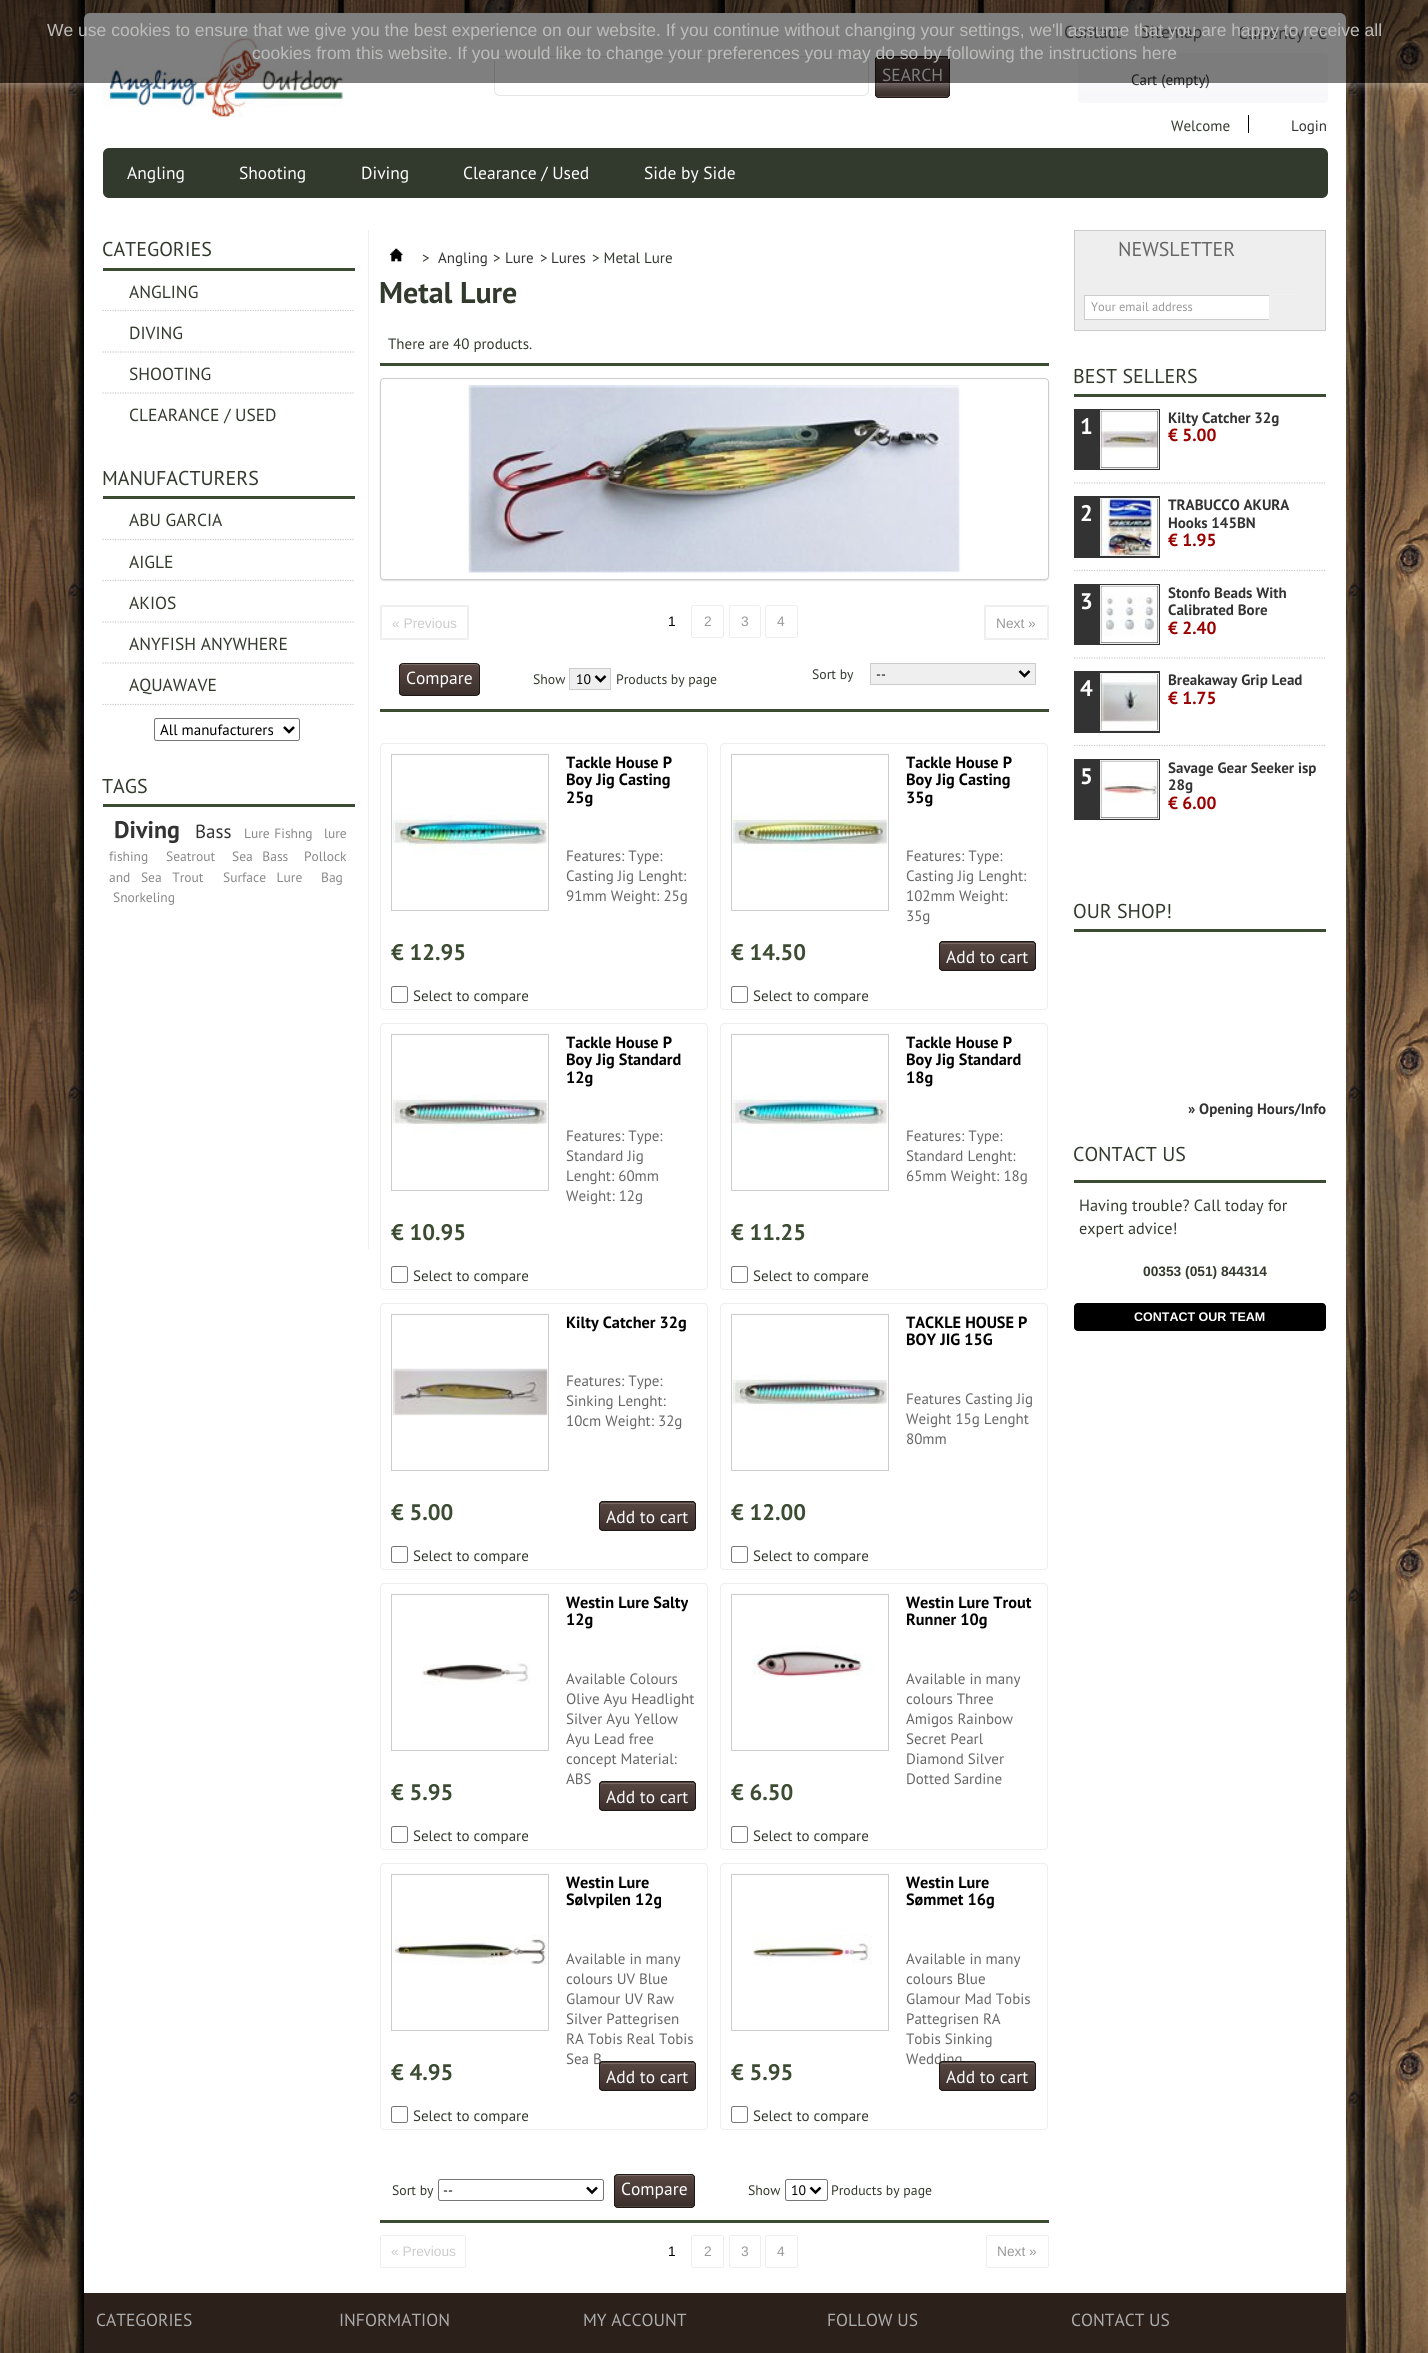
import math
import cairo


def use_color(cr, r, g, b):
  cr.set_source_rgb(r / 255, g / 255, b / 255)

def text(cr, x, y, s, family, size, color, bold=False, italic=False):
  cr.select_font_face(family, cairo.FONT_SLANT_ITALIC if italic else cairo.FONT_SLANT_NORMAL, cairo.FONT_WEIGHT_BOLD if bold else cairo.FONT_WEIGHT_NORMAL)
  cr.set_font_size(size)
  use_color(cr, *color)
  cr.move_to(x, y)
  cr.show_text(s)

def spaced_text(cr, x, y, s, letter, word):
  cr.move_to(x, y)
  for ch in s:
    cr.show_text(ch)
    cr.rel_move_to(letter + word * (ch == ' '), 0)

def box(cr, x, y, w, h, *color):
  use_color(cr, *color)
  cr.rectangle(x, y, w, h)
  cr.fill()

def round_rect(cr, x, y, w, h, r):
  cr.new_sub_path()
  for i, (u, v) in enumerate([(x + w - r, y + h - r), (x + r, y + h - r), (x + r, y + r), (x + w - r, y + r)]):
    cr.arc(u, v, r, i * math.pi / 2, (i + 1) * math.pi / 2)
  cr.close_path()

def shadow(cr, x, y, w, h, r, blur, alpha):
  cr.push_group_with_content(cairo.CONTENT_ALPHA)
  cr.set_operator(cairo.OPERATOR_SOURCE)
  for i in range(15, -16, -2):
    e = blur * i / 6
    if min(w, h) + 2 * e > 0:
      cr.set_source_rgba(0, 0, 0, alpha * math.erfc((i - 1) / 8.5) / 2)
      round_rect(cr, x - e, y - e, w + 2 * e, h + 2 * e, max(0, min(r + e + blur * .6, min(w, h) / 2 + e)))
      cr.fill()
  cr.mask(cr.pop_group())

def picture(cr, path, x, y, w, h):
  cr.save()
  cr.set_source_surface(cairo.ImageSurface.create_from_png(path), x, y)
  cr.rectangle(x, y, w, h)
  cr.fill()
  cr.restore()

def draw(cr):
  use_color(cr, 255, 255, 255)
  cr.paint()
  picture(cr, "img_01.png", 0, 0, 1428, 2353)
  use_color(cr, 0, 0, 0)
  shadow(cr, 84, 13, 1262, 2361, 6, 5, 0.08)
  use_color(cr, 255, 255, 255)
  round_rect(cr, 84, 13, 1262, 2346, 6)
  cr.fill()
  box(cr, 84, 2293, 1262, 60, 43, 32, 26)
  round_rect(cr, 494.5, 56.5, 374, 39, 5.5)
  use_color(cr, 228, 228, 228)
  cr.set_line_width(1)
  cr.stroke()
  use_color(cr, 76, 62, 57)
  round_rect(cr, 875, 56, 75, 42, 4)
  cr.fill()
  cr.save()
  round_rect(cr, 875, 56, 75, 42, 4)
  cr.clip()
  gradient = cairo.LinearGradient(913, 58, 913, 96)
  gradient.add_color_stop_rgba(0, 0.345, 0.278, 0.259, 1)
  gradient.add_color_stop_rgba(1, 0.231, 0.184, 0.173, 1)
  cr.set_source(gradient)
  cr.rectangle(875, 58, 75, 38)
  cr.fill()
  cr.restore()
  cr.set_source_rgba(1, 1, 1, 0.2)
  cr.new_path()
  cr.move_to(879, 59)
  cr.line_to(946, 59)
  cr.curve_to(948, 59, 949, 60, 949, 61)
  cr.curve_to(949, 55, 937, 58, 935, 58)
  cr.line_to(890, 58)
  cr.curve_to(888, 58, 876, 55, 876, 61)
  cr.curve_to(876, 60, 877, 59, 879, 59)
  cr.close_path()
  cr.fill()
  round_rect(cr, 875.5, 56.5, 74, 41, 3.5)
  use_color(cr, 30, 24, 22)
  cr.stroke()
  use_color(cr, 248, 248, 250)
  round_rect(cr, 1078, 53, 250, 50, 4)
  cr.fill()
  picture(cr, "img_02.png", 102, 37, 241, 81)
  cr.save()
  cr.set_fill_rule(cairo.FILL_RULE_EVEN_ODD)
  cr.new_path()
  cr.move_to(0, 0)
  cr.line_to(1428, 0)
  cr.line_to(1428, 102)
  cr.line_to(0, 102)
  cr.close_path()
  cr.move_to(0, 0)
  cr.line_to(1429, 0)
  cr.line_to(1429, 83)
  cr.line_to(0, 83)
  cr.close_path()
  cr.clip()
  use_color(cr, 255, 255, 255)
  shadow(cr, 0, 0, 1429, 83, 0, 6, 0.5)
  cr.restore()
  box(cr, 1248, 115, 1, 18, 0, 0, 0)
  use_color(cr, 50, 58, 46)
  round_rect(cr, 103, 148, 1225, 50, 6)
  cr.fill()
  box(cr, 368, 230, 1, 1019, 238, 238, 238)
  box(cr, 103, 268, 252, 3, 60, 76, 50)
  cr.new_path()
  cr.move_to(102.5, 310.5)
  cr.line_to(355, 310.5)
  use_color(cr, 204, 204, 204)
  cr.set_line_width(1.2)
  cr.set_dash([1.25, 1.25])
  cr.stroke()
  cr.new_path()
  cr.move_to(102.5, 352)
  cr.line_to(355, 352)
  cr.stroke()
  cr.new_path()
  cr.move_to(102.5, 393)
  cr.line_to(355, 393)
  cr.stroke()
  box(cr, 103, 496, 252, 3, 60, 76, 50)
  cr.new_path()
  cr.move_to(102.5, 539.5)
  cr.line_to(355, 539.5)
  use_color(cr, 204, 204, 204)
  cr.stroke()
  cr.new_path()
  cr.move_to(102.5, 580.5)
  cr.line_to(355, 580.5)
  cr.stroke()
  cr.new_path()
  cr.move_to(102.5, 622)
  cr.line_to(355, 622)
  cr.stroke()
  cr.new_path()
  cr.move_to(102.5, 663)
  cr.line_to(355, 663)
  cr.stroke()
  cr.new_path()
  cr.move_to(102.5, 704.5)
  cr.line_to(355, 704.5)
  cr.stroke()
  round_rect(cr, 154.5, 718.5, 145, 22, 2)
  use_color(cr, 118, 118, 118)
  cr.set_line_width(1)
  cr.set_dash([])
  cr.stroke()
  cr.new_path()
  cr.move_to(284, 727)
  cr.line_to(289, 732)
  cr.line_to(294, 727)
  use_color(cr, 0, 0, 0)
  cr.set_line_width(2.5)
  cr.stroke()
  box(cr, 103, 804, 252, 3, 60, 76, 50)
  picture(cr, "img_03.png", 389, 248, 14, 14)
  box(cr, 380, 363, 669, 3, 60, 76, 50)
  cr.save()
  cr.set_fill_rule(cairo.FILL_RULE_EVEN_ODD)
  cr.new_path()
  cr.move_to(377, 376)
  cr.line_to(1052, 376)
  cr.line_to(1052, 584)
  cr.line_to(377, 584)
  cr.close_path()
  cr.move_to(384, 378)
  cr.line_to(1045, 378)
  cr.curve_to(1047, 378, 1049, 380, 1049, 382)
  cr.line_to(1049, 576)
  cr.curve_to(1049, 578, 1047, 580, 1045, 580)
  cr.line_to(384, 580)
  cr.curve_to(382, 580, 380, 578, 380, 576)
  cr.line_to(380, 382)
  cr.curve_to(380, 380, 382, 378, 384, 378)
  cr.close_path()
  cr.clip()
  use_color(cr, 226, 226, 226)
  shadow(cr, 380, 379, 669, 202, 4, 0.5, 1)
  cr.restore()
  round_rect(cr, 380.5, 378.5, 668, 201, 3.5)
  use_color(cr, 204, 204, 204)
  cr.set_line_width(1)
  cr.stroke()
  picture(cr, "img_04.png", 468, 385, 493, 188)
  cr.rectangle(380.5, 605.5, 88, 34)
  use_color(cr, 238, 238, 238)
  cr.stroke()
  round_rect(cr, 381.5, 606.5, 86, 32, 2)
  cr.stroke()
  round_rect(cr, 691.5, 605.5, 32, 32, 2)
  cr.stroke()
  round_rect(cr, 729.5, 605.5, 31, 32, 2)
  cr.stroke()
  round_rect(cr, 765.5, 605.5, 32, 32, 2)
  cr.stroke()
  cr.rectangle(984.5, 605.5, 64, 34)
  cr.stroke()
  round_rect(cr, 985.5, 606.5, 62, 32, 2)
  cr.stroke()
  box(cr, 380, 709, 669, 3, 60, 76, 50)
  cr.save()
  round_rect(cr, 399, 663, 81, 33, 4)
  cr.clip()
  gradient = cairo.LinearGradient(439, 664, 439, 695)
  gradient.add_color_stop_rgba(0, 0.345, 0.278, 0.259, 1)
  gradient.add_color_stop_rgba(1, 0.231, 0.184, 0.173, 1)
  cr.set_source(gradient)
  cr.rectangle(399, 664, 81, 31)
  cr.fill()
  cr.restore()
  use_color(cr, 121, 108, 104)
  cr.set_fill_rule(cairo.FILL_RULE_EVEN_ODD)
  cr.new_path()
  cr.move_to(402, 665)
  cr.line_to(477, 665)
  cr.line_to(479, 667)
  cr.curve_to(479, 666, 478, 664, 477, 664)
  cr.line_to(402, 664)
  cr.line_to(401, 665)
  cr.line_to(400, 666)
  cr.curve_to(400, 666, 401, 665, 402, 665)
  cr.close_path()
  cr.move_to(400, 694)
  cr.line_to(400, 689)
  cr.close_path()
  cr.fill()
  round_rect(cr, 399.5, 663.5, 80, 32, 3.5)
  use_color(cr, 30, 24, 22)
  cr.stroke()
  use_color(cr, 239, 239, 239)
  cr.rectangle(569.5, 668.5, 41, 21)
  cr.fill_preserve()
  use_color(cr, 204, 204, 204)
  cr.stroke()
  cr.new_path()
  cr.move_to(595.5, 676)
  cr.line_to(600.5, 681)
  cr.line_to(605.5, 676)
  use_color(cr, 0, 0, 0)
  cr.set_line_width(2.5)
  cr.stroke()
  use_color(cr, 239, 239, 239)
  cr.rectangle(870.5, 663.5, 165, 21)
  cr.fill_preserve()
  use_color(cr, 204, 204, 204)
  cr.set_line_width(1)
  cr.stroke()
  cr.new_path()
  cr.move_to(1019.5, 671)
  cr.line_to(1024.5, 676)
  cr.line_to(1029.5, 671)
  use_color(cr, 0, 0, 0)
  cr.set_line_width(2.5)
  cr.stroke()
  round_rect(cr, 380.5, 743.5, 327, 266, 3.5)
  use_color(cr, 238, 238, 238)
  cr.set_line_width(1)
  cr.stroke()
  cr.rectangle(391.5, 754.5, 157, 156)
  use_color(cr, 204, 204, 204)
  cr.stroke()
  picture(cr, "img_05.png", 392, 814, 156, 41)
  round_rect(cr, 391.5, 986.5, 16, 16, 2)
  use_color(cr, 118, 118, 118)
  cr.stroke()
  round_rect(cr, 720.5, 743.5, 327, 266, 3.5)
  use_color(cr, 238, 238, 238)
  cr.stroke()
  cr.rectangle(731.5, 754.5, 157, 156)
  use_color(cr, 204, 204, 204)
  cr.stroke()
  picture(cr, "img_06.png", 732, 814, 156, 38)
  use_color(cr, 76, 62, 57)
  round_rect(cr, 939, 941, 97, 30, 4)
  cr.fill()
  cr.save()
  cr.set_fill_rule(cairo.FILL_RULE_WINDING)
  round_rect(cr, 939, 941, 97, 30, 4)
  cr.clip()
  gradient = cairo.LinearGradient(988, 943, 988, 970)
  gradient.add_color_stop_rgba(0, 0.345, 0.278, 0.259, 1)
  gradient.add_color_stop_rgba(1, 0.231, 0.184, 0.173, 1)
  cr.set_source(gradient)
  cr.rectangle(939, 943, 97, 27)
  cr.fill()
  cr.restore()
  use_color(cr, 121, 108, 104)
  cr.set_fill_rule(cairo.FILL_RULE_WINDING)
  cr.new_path()
  cr.move_to(942, 944)
  cr.line_to(1032, 944)
  cr.curve_to(1034, 944, 1035, 945, 1035, 946)
  cr.curve_to(1035, 945, 1034, 943, 1033, 943)
  cr.line_to(942, 943)
  cr.curve_to(941, 943, 940, 945, 940, 946)
  cr.curve_to(940, 945, 941, 944, 942, 944)
  cr.close_path()
  cr.fill()
  round_rect(cr, 939.5, 941.5, 96, 29, 3.5)
  use_color(cr, 30, 24, 22)
  cr.stroke()
  round_rect(cr, 731.5, 986.5, 16, 16, 2)
  use_color(cr, 118, 118, 118)
  cr.stroke()
  round_rect(cr, 380.5, 1023.5, 327, 266, 3.5)
  use_color(cr, 238, 238, 238)
  cr.stroke()
  cr.rectangle(391.5, 1034.5, 157, 156)
  use_color(cr, 204, 204, 204)
  cr.stroke()
  picture(cr, "img_07.png", 392, 1095, 156, 39)
  round_rect(cr, 391.5, 1266.5, 16, 16, 2)
  use_color(cr, 118, 118, 118)
  cr.stroke()
  round_rect(cr, 720.5, 1023.5, 327, 266, 3.5)
  use_color(cr, 238, 238, 238)
  cr.stroke()
  cr.rectangle(731.5, 1034.5, 157, 156)
  use_color(cr, 204, 204, 204)
  cr.stroke()
  picture(cr, "img_08.png", 732, 1095, 156, 38)
  round_rect(cr, 731.5, 1266.5, 16, 16, 2)
  use_color(cr, 118, 118, 118)
  cr.stroke()
  round_rect(cr, 380.5, 1303.5, 327, 266, 3.5)
  use_color(cr, 238, 238, 238)
  cr.stroke()
  cr.rectangle(391.5, 1314.5, 157, 156)
  use_color(cr, 204, 204, 204)
  cr.stroke()
  picture(cr, "img_09.png", 392, 1368, 156, 48)
  use_color(cr, 76, 62, 57)
  round_rect(cr, 599, 1501, 97, 30, 4)
  cr.fill()
  cr.save()
  round_rect(cr, 599, 1501, 97, 30, 4)
  cr.clip()
  gradient = cairo.LinearGradient(648, 1503, 648, 1530)
  gradient.add_color_stop_rgba(0, 0.345, 0.278, 0.259, 1)
  gradient.add_color_stop_rgba(1, 0.231, 0.184, 0.173, 1)
  cr.set_source(gradient)
  cr.rectangle(599, 1503, 97, 27)
  cr.fill()
  cr.restore()
  use_color(cr, 121, 108, 104)
  cr.new_path()
  cr.move_to(602, 1504)
  cr.line_to(692, 1504)
  cr.curve_to(694, 1504, 695, 1505, 695, 1506)
  cr.curve_to(695, 1505, 694, 1503, 693, 1503)
  cr.line_to(602, 1503)
  cr.curve_to(601, 1503, 600, 1505, 600, 1506)
  cr.curve_to(600, 1505, 601, 1504, 602, 1504)
  cr.close_path()
  cr.fill()
  round_rect(cr, 599.5, 1501.5, 96, 29, 3.5)
  use_color(cr, 30, 24, 22)
  cr.stroke()
  round_rect(cr, 391.5, 1546.5, 16, 16, 2)
  use_color(cr, 118, 118, 118)
  cr.stroke()
  round_rect(cr, 720.5, 1303.5, 327, 266, 3.5)
  use_color(cr, 238, 238, 238)
  cr.stroke()
  cr.rectangle(731.5, 1314.5, 157, 156)
  use_color(cr, 204, 204, 204)
  cr.stroke()
  picture(cr, "img_10.png", 732, 1375, 156, 40)
  round_rect(cr, 731.5, 1546.5, 16, 16, 2)
  use_color(cr, 118, 118, 118)
  cr.stroke()
  round_rect(cr, 380.5, 1583.5, 327, 266, 3.5)
  use_color(cr, 238, 238, 238)
  cr.stroke()
  cr.rectangle(391.5, 1594.5, 157, 156)
  use_color(cr, 204, 204, 204)
  cr.stroke()
  picture(cr, "img_11.png", 422, 1663, 109, 22)
  use_color(cr, 76, 62, 57)
  round_rect(cr, 599, 1781, 97, 30, 4)
  cr.fill()
  cr.save()
  round_rect(cr, 599, 1781, 97, 30, 4)
  cr.clip()
  gradient = cairo.LinearGradient(648, 1783, 648, 1810)
  gradient.add_color_stop_rgba(0, 0.345, 0.278, 0.259, 1)
  gradient.add_color_stop_rgba(1, 0.231, 0.184, 0.173, 1)
  cr.set_source(gradient)
  cr.rectangle(599, 1783, 97, 27)
  cr.fill()
  cr.restore()
  use_color(cr, 121, 108, 104)
  cr.new_path()
  cr.move_to(602, 1784)
  cr.line_to(692, 1784)
  cr.curve_to(694, 1784, 695, 1785, 695, 1786)
  cr.curve_to(695, 1785, 694, 1783, 693, 1783)
  cr.line_to(602, 1783)
  cr.curve_to(601, 1783, 600, 1785, 600, 1786)
  cr.curve_to(600, 1785, 601, 1784, 602, 1784)
  cr.close_path()
  cr.fill()
  round_rect(cr, 599.5, 1781.5, 96, 29, 3.5)
  use_color(cr, 30, 24, 22)
  cr.stroke()
  round_rect(cr, 391.5, 1826.5, 16, 16, 2)
  use_color(cr, 118, 118, 118)
  cr.stroke()
  round_rect(cr, 720.5, 1583.5, 327, 266, 3.5)
  use_color(cr, 238, 238, 238)
  cr.stroke()
  cr.rectangle(731.5, 1594.5, 157, 156)
  use_color(cr, 204, 204, 204)
  cr.stroke()
  picture(cr, "img_12.png", 752, 1646, 121, 31)
  round_rect(cr, 731.5, 1826.5, 16, 16, 2)
  use_color(cr, 118, 118, 118)
  cr.stroke()
  round_rect(cr, 380.5, 1863.5, 327, 266, 3.5)
  use_color(cr, 238, 238, 238)
  cr.stroke()
  cr.rectangle(391.5, 1874.5, 157, 156)
  use_color(cr, 204, 204, 204)
  cr.stroke()
  picture(cr, "img_13.png", 393, 1935, 154, 30)
  round_rect(cr, 391.5, 2106.5, 16, 16, 2)
  use_color(cr, 118, 118, 118)
  cr.stroke()
  round_rect(cr, 720.5, 1863.5, 327, 266, 3.5)
  use_color(cr, 238, 238, 238)
  cr.stroke()
  cr.rectangle(731.5, 1874.5, 157, 156)
  use_color(cr, 204, 204, 204)
  cr.stroke()
  picture(cr, "img_14.png", 752, 1934, 120, 31)
  round_rect(cr, 731.5, 2106.5, 16, 16, 2)
  use_color(cr, 118, 118, 118)
  cr.stroke()
  box(cr, 380, 2220, 669, 3, 60, 76, 50)
  round_rect(cr, 438.5, 2179.5, 165, 21, 2)
  use_color(cr, 118, 118, 118)
  cr.stroke()
  cr.new_path()
  cr.move_to(587, 2187.5)
  cr.line_to(592, 2192.5)
  cr.line_to(597, 2187.5)
  use_color(cr, 0, 0, 0)
  cr.set_line_width(2.5)
  cr.stroke()
  use_color(cr, 76, 62, 57)
  round_rect(cr, 614, 2174, 81, 34, 4)
  cr.fill()
  cr.save()
  round_rect(cr, 614, 2174, 81, 34, 4)
  cr.clip()
  gradient = cairo.LinearGradient(654, 2175, 654, 2206)
  gradient.add_color_stop_rgba(0, 0.345, 0.278, 0.259, 1)
  gradient.add_color_stop_rgba(1, 0.231, 0.184, 0.173, 1)
  cr.set_source(gradient)
  cr.rectangle(614, 2175, 81, 31)
  cr.fill()
  cr.restore()
  cr.set_source_rgba(1, 1, 1, 0.2)
  cr.set_fill_rule(cairo.FILL_RULE_EVEN_ODD)
  cr.new_path()
  cr.move_to(618, 2176)
  cr.line_to(692, 2176)
  cr.line_to(694, 2178)
  cr.curve_to(694, 2177, 694, 2176, 692, 2175)
  cr.line_to(630, 2175)
  cr.curve_to(626, 2175, 615, 2172, 615, 2179)
  cr.curve_to(615, 2177, 616, 2176, 618, 2176)
  cr.close_path()
  cr.move_to(615, 2204)
  cr.line_to(615, 2201)
  cr.close_path()
  cr.fill()
  round_rect(cr, 614.5, 2174.5, 80, 33, 3.5)
  use_color(cr, 30, 24, 22)
  cr.set_line_width(1)
  cr.stroke()
  round_rect(cr, 785.5, 2179.5, 42, 21, 2)
  use_color(cr, 118, 118, 118)
  cr.stroke()
  cr.new_path()
  cr.move_to(810.5, 2187.5)
  cr.line_to(815.5, 2192.5)
  cr.line_to(820.5, 2187.5)
  use_color(cr, 0, 0, 0)
  cr.set_line_width(2.5)
  cr.stroke()
  round_rect(cr, 380.5, 2235.5, 85, 32, 2)
  use_color(cr, 238, 238, 238)
  cr.set_line_width(1)
  cr.stroke()
  round_rect(cr, 691.5, 2235.5, 32, 32, 2)
  cr.stroke()
  round_rect(cr, 729.5, 2235.5, 31, 32, 2)
  cr.stroke()
  round_rect(cr, 765.5, 2235.5, 32, 32, 2)
  cr.stroke()
  round_rect(cr, 986.5, 2235.5, 62, 32, 2)
  cr.stroke()
  cr.rectangle(1074.5, 230.5, 251, 100)
  cr.fill_preserve()
  use_color(cr, 204, 204, 204)
  cr.stroke()
  use_color(cr, 241, 241, 241)
  cr.set_fill_rule(cairo.FILL_RULE_WINDING)
  cr.new_path()
  cr.move_to(1274, 295)
  cr.line_to(1294, 295)
  cr.curve_to(1296, 295, 1298, 297, 1298, 299)
  cr.curve_to(1298, 294, 1295, 294, 1290.5, 294)
  cr.line_to(1277.5, 294)
  cr.curve_to(1273, 294, 1270, 294, 1270, 299)
  cr.curve_to(1270, 297, 1272, 295, 1274, 295)
  cr.close_path()
  cr.fill()
  box(cr, 1085, 296, 184, 23, 255, 255, 255)
  box(cr, 1084, 295, 185, 1, 204, 204, 204)
  box(cr, 1084, 319, 185, 1, 204, 204, 204)
  box(cr, 1084, 295, 1, 25, 204, 204, 204)
  box(cr, 1074, 394, 252, 3, 60, 76, 50)
  cr.new_path()
  cr.move_to(1074, 483)
  cr.line_to(1326, 483)
  use_color(cr, 204, 204, 204)
  cr.set_line_width(1.2)
  cr.set_dash([1.25, 1.25])
  cr.stroke()
  box(cr, 1074, 409, 86, 61, 51, 51, 51)
  cr.rectangle(1100.5, 410.5, 58, 58)
  use_color(cr, 237, 237, 237)
  cr.set_line_width(1)
  cr.set_dash([])
  cr.stroke()
  picture(cr, "img_15.png", 1101, 411, 57, 57)
  cr.new_path()
  cr.move_to(1074, 570.5)
  cr.line_to(1326, 570.5)
  use_color(cr, 204, 204, 204)
  cr.set_line_width(1.2)
  cr.set_dash([1.25, 1.25])
  cr.stroke()
  box(cr, 1074, 496, 86, 62, 51, 51, 51)
  cr.rectangle(1100.5, 498.5, 58, 57)
  use_color(cr, 237, 237, 237)
  cr.set_line_width(1)
  cr.set_dash([])
  cr.stroke()
  picture(cr, "img_16.png", 1101, 498, 57, 57)
  cr.new_path()
  cr.move_to(1074, 658)
  cr.line_to(1326, 658)
  use_color(cr, 204, 204, 204)
  cr.set_line_width(1.2)
  cr.set_dash([1.25, 1.25])
  cr.stroke()
  box(cr, 1074, 584, 86, 61, 51, 51, 51)
  cr.rectangle(1100.5, 585.5, 58, 58)
  use_color(cr, 237, 237, 237)
  cr.set_line_width(1)
  cr.set_dash([])
  cr.stroke()
  picture(cr, "img_17.png", 1101, 586, 57, 57)
  cr.new_path()
  cr.move_to(1074, 745.5)
  cr.line_to(1326, 745.5)
  use_color(cr, 204, 204, 204)
  cr.set_line_width(1.2)
  cr.set_dash([1.25, 1.25])
  cr.stroke()
  box(cr, 1074, 671, 86, 62, 51, 51, 51)
  cr.rectangle(1100.5, 673.5, 58, 57)
  use_color(cr, 237, 237, 237)
  cr.set_line_width(1)
  cr.set_dash([])
  cr.stroke()
  picture(cr, "img_18.png", 1101, 673, 57, 57)
  box(cr, 1074, 759, 86, 61, 51, 51, 51)
  cr.rectangle(1100.5, 760.5, 58, 58)
  use_color(cr, 237, 237, 237)
  cr.stroke()
  picture(cr, "img_19.png", 1101, 761, 57, 57)
  box(cr, 1074, 929, 252, 3, 60, 76, 50)
  box(cr, 1074, 1180, 252, 3, 60, 76, 50)
  use_color(cr, 0, 0, 0)
  round_rect(cr, 1074, 1303, 252, 28, 4)
  cr.fill()
  text(cr, 96, 2326, "CATEGORIES", "PT Sans", 17.5, (172, 172, 172))
  text(cr, 339, 2326, "INFORMATION", "PT Sans", 17.5, (172, 172, 172))
  text(cr, 583, 2326, "MY ACCOUNT", "PT Sans", 17.5, (172, 172, 172))
  text(cr, 827, 2326, "FOLLOW US", "PT Sans", 17.5, (172, 172, 172))
  text(cr, 1071, 2326, "CONTACT US", "PT Sans", 17.5, (172, 172, 172))
  text(cr, 1064, 38, "Contact", "PT Sans", 17.5, (102, 102, 102))
  text(cr, 1141, 38, "Sitemap", "PT Sans", 17.5, (102, 102, 102))
  text(cr, 1238, 39, "Currency : €", "PT Sans", 17.5, (102, 102, 102))
  text(cr, 882, 81, "SEARCH", "PT Sans", 17.5, (255, 255, 255))
  text(cr, 1131, 85, "Cart (empty)", "PT Sans", 15, (51, 51, 51))
  cr.set_source_rgba(0, 0, 0, 0.5)
  cr.rectangle(0, 0, 1428, 83)
  cr.fill()
  text(cr, 1142, 59, "here", "Liberation Sans", 17.5, (188, 188, 187))
  text(cr, 252, 59, "cookies from this website. If you would like to change your preferences you may do so by following the instructions", "Liberation Sans", 17.5, (188, 188, 187))
  text(cr, 47, 36, "We use cookies to ensure that we give you the best experience on our website. If you continue without changing your settings, we'll assume that you are happy to receive all", "Liberation Sans", 17.5, (188, 188, 187))
  text(cr, 1171, 131, "Welcome", "PT Sans", 15, (50, 58, 46))
  text(cr, 1291, 131, "Login", "PT Sans", 15, (51, 51, 51))
  text(cr, 127, 179, "Angling", "PT Sans", 17.5, (255, 255, 255))
  text(cr, 239, 179, "Shooting", "PT Sans", 17.5, (255, 255, 255))
  text(cr, 361, 179, "Diving", "PT Sans", 17.5, (255, 255, 255))
  text(cr, 463, 179, "Clearance / Used", "PT Sans", 17.5, (255, 255, 255))
  text(cr, 644, 179, "Side by Side", "PT Sans", 17.5, (255, 255, 255))
  text(cr, 102, 256, "CATEGORIES", "PT Sans", 20, (50, 58, 46))
  text(cr, 129, 298, "ANGLING", "PT Sans", 17.5, (50, 58, 46))
  text(cr, 129, 339, "DIVING", "PT Sans", 17.5, (50, 58, 46))
  text(cr, 129, 380, "SHOOTING", "PT Sans", 17.5, (50, 58, 46))
  text(cr, 129, 421, "CLEARANCE / USED", "PT Sans", 17.5, (50, 58, 46))
  text(cr, 102, 485, "MANUFACTURERS", "PT Sans", 20, (50, 58, 46))
  text(cr, 129, 526, "ABU GARCIA", "PT Sans", 17.5, (50, 58, 46))
  text(cr, 129, 568, "AIGLE", "PT Sans", 17.5, (50, 58, 46))
  text(cr, 129, 609, "AKIOS", "PT Sans", 17.5, (50, 58, 46))
  text(cr, 129, 650, "ANYFISH ANYWHERE", "PT Sans", 17.5, (50, 58, 46))
  text(cr, 129, 691, "AQUAWAVE", "PT Sans", 17.5, (50, 58, 46))
  text(cr, 160, 735, "All manufacturers", "PT Sans", 15, (0, 0, 0))
  text(cr, 102, 793, "TAGS", "PT Sans", 20, (50, 58, 46))
  text(cr, 114, 838, "Diving", "PT Sans", 24, (51, 51, 51), bold=True)
  text(cr, 195, 838, "Bass", "PT Sans", 19, (51, 51, 51))
  cr.set_font_size(13.5)
  use_color(cr, 136, 136, 136)
  spaced_text(cr, 244, 838, "Lure Fishng", 0, 1)
  text(cr, 324, 838, "lure", "PT Sans", 13.5, (136, 136, 136))
  text(cr, 109, 861, "fishing", "PT Sans", 13.5, (136, 136, 136))
  text(cr, 166, 861, "Seatrout", "PT Sans", 13.5, (136, 136, 136))
  spaced_text(cr, 232, 861, "Sea Bass", 0, 6)
  text(cr, 304, 861, "Pollock", "PT Sans", 13.5, (136, 136, 136))
  spaced_text(cr, 109, 882, "and Sea Trout", 0, 7)
  spaced_text(cr, 223, 882, "Surface Lure", 0, 7)
  text(cr, 321, 882, "Bag", "PT Sans", 13.5, (136, 136, 136))
  text(cr, 113, 902, "Snorkeling", "PT Sans", 13.5, (136, 136, 136))
  text(cr, 422, 263, ">", "PT Sans", 15, (50, 58, 46))
  text(cr, 438, 263, "Angling", "PT Sans", 15, (51, 51, 51))
  text(cr, 493, 263, ">", "PT Sans", 15, (50, 58, 46))
  text(cr, 505, 263, "Lure", "PT Sans", 15, (51, 51, 51))
  text(cr, 540, 263, ">", "PT Sans", 15, (50, 58, 46))
  text(cr, 551, 263, "Lures", "PT Sans", 15, (51, 51, 51))
  text(cr, 592, 263, "> Metal Lure", "PT Sans", 15, (50, 58, 46))
  text(cr, 379, 303, "Metal Lure", "PT Sans", 30, (50, 58, 46), bold=True)
  text(cr, 388, 349, "There are 40 products.", "PT Sans", 15, (50, 58, 46))
  text(cr, 392, 628, "« Previous", "Liberation Sans", 13.75, (204, 204, 204))
  text(cr, 668, 626, "1", "Liberation Sans", 13.75, (0, 0, 0))
  text(cr, 704, 626, "2", "Liberation Sans", 13.75, (153, 153, 153))
  text(cr, 741, 626, "3", "Liberation Sans", 13.75, (153, 153, 153))
  text(cr, 777, 626, "4", "Liberation Sans", 13.75, (153, 153, 153))
  text(cr, 996, 628, "Next »", "Liberation Sans", 13.75, (153, 153, 153))
  text(cr, 406, 684, "Compare", "PT Sans", 17.5, (255, 255, 255))
  text(cr, 533, 684, "Show", "PT Sans", 13.75, (50, 58, 46))
  text(cr, 576, 684, "10", "PT Sans", 13.75, (0, 0, 0))
  text(cr, 616, 684, "Products by page", "PT Sans", 13.75, (50, 58, 46))
  text(cr, 812, 679, "Sort by", "PT Sans", 13.75, (50, 58, 46))
  text(cr, 876, 679, "--", "PT Sans", 13.75, (0, 0, 0))
  text(cr, 566, 768, "Tackle House P", "PT Sans", 16.25, (0, 0, 0), bold=True)
  text(cr, 566, 785, "Boy Jig Casting", "PT Sans", 16.25, (0, 0, 0), bold=True)
  text(cr, 566, 803, "25g", "PT Sans", 16.25, (0, 0, 0), bold=True)
  text(cr, 566, 861, "Features: Type:", "PT Sans", 15, (102, 102, 102))
  text(cr, 566, 881, "Casting Jig Lenght:", "PT Sans", 15, (102, 102, 102))
  text(cr, 566, 901, "91mm Weight: 25g", "PT Sans", 15, (102, 102, 102))
  text(cr, 391, 960, "€ 12.95", "PT Sans", 22.5, (60, 76, 50), bold=True)
  text(cr, 413, 1001, "Select to compare", "PT Sans", 15, (50, 58, 46))
  text(cr, 906, 768, "Tackle House P", "PT Sans", 16.25, (0, 0, 0), bold=True)
  text(cr, 906, 785, "Boy Jig Casting", "PT Sans", 16.25, (0, 0, 0), bold=True)
  text(cr, 906, 803, "35g", "PT Sans", 16.25, (0, 0, 0), bold=True)
  text(cr, 906, 861, "Features: Type:", "PT Sans", 15, (102, 102, 102))
  text(cr, 906, 881, "Casting Jig Lenght:", "PT Sans", 15, (102, 102, 102))
  text(cr, 906, 901, "102mm Weight:", "PT Sans", 15, (102, 102, 102))
  text(cr, 906, 921, "35g", "PT Sans", 15, (102, 102, 102))
  text(cr, 731, 960, "€ 14.50", "PT Sans", 22.5, (60, 76, 50), bold=True)
  text(cr, 946, 963, "Add to cart", "PT Sans", 17.5, (255, 255, 255))
  text(cr, 753, 1001, "Select to compare", "PT Sans", 15, (50, 58, 46))
  text(cr, 566, 1048, "Tackle House P", "PT Sans", 16.25, (0, 0, 0), bold=True)
  text(cr, 566, 1065, "Boy Jig Standard", "PT Sans", 16.25, (0, 0, 0), bold=True)
  text(cr, 566, 1083, "12g", "PT Sans", 16.25, (0, 0, 0), bold=True)
  text(cr, 566, 1141, "Features: Type:", "PT Sans", 15, (102, 102, 102))
  text(cr, 566, 1161, "Standard Jig", "PT Sans", 15, (102, 102, 102))
  text(cr, 566, 1181, "Lenght: 60mm", "PT Sans", 15, (102, 102, 102))
  text(cr, 566, 1201, "Weight: 12g", "PT Sans", 15, (102, 102, 102))
  text(cr, 391, 1240, "€ 10.95", "PT Sans", 22.5, (60, 76, 50), bold=True)
  text(cr, 413, 1281, "Select to compare", "PT Sans", 15, (50, 58, 46))
  text(cr, 906, 1048, "Tackle House P", "PT Sans", 16.25, (0, 0, 0), bold=True)
  text(cr, 906, 1065, "Boy Jig Standard", "PT Sans", 16.25, (0, 0, 0), bold=True)
  text(cr, 906, 1083, "18g", "PT Sans", 16.25, (0, 0, 0), bold=True)
  text(cr, 906, 1141, "Features: Type:", "PT Sans", 15, (102, 102, 102))
  text(cr, 906, 1161, "Standard Lenght:", "PT Sans", 15, (102, 102, 102))
  text(cr, 906, 1181, "65mm Weight: 18g", "PT Sans", 15, (102, 102, 102))
  text(cr, 731, 1240, "€ 11.25", "PT Sans", 22.5, (60, 76, 50), bold=True)
  text(cr, 753, 1281, "Select to compare", "PT Sans", 15, (50, 58, 46))
  text(cr, 566, 1328, "Kilty Catcher 32g", "PT Sans", 16.25, (0, 0, 0), bold=True)
  text(cr, 566, 1386, "Features: Type:", "PT Sans", 15, (102, 102, 102))
  text(cr, 566, 1406, "Sinking Lenght:", "PT Sans", 15, (102, 102, 102))
  text(cr, 566, 1426, "10cm Weight: 32g", "PT Sans", 15, (102, 102, 102))
  text(cr, 391, 1520, "€ 5.00", "PT Sans", 22.5, (60, 76, 50), bold=True)
  text(cr, 606, 1523, "Add to cart", "PT Sans", 17.5, (255, 255, 255))
  text(cr, 413, 1561, "Select to compare", "PT Sans", 15, (50, 58, 46))
  text(cr, 906, 1328, "TACKLE HOUSE P", "PT Sans", 16.25, (0, 0, 0), bold=True)
  text(cr, 906, 1345, "BOY JIG 15G", "PT Sans", 16.25, (0, 0, 0), bold=True)
  text(cr, 906, 1404, "Features Casting Jig", "PT Sans", 15, (102, 102, 102))
  text(cr, 906, 1424, "Weight 15g Lenght", "PT Sans", 15, (102, 102, 102))
  text(cr, 906, 1444, "80mm", "PT Sans", 15, (102, 102, 102))
  text(cr, 731, 1520, "€ 12.00", "PT Sans", 22.5, (60, 76, 50), bold=True)
  text(cr, 753, 1561, "Select to compare", "PT Sans", 15, (50, 58, 46))
  text(cr, 566, 1608, "Westin Lure Salty", "PT Sans", 16.25, (0, 0, 0), bold=True)
  text(cr, 566, 1625, "12g", "PT Sans", 16.25, (0, 0, 0), bold=True)
  text(cr, 566, 1684, "Available Colours", "PT Sans", 15, (102, 102, 102))
  text(cr, 566, 1704, "Olive Ayu Headlight", "PT Sans", 15, (102, 102, 102))
  text(cr, 566, 1724, "Silver Ayu Yellow", "PT Sans", 15, (102, 102, 102))
  text(cr, 566, 1744, "Ayu Lead free", "PT Sans", 15, (102, 102, 102))
  text(cr, 566, 1764, "concept Material:", "PT Sans", 15, (102, 102, 102))
  text(cr, 566, 1784, "ABS", "PT Sans", 15, (102, 102, 102))
  text(cr, 391, 1800, "€ 5.95", "PT Sans", 22.5, (60, 76, 50), bold=True)
  text(cr, 606, 1803, "Add to cart", "PT Sans", 17.5, (255, 255, 255))
  text(cr, 413, 1841, "Select to compare", "PT Sans", 15, (50, 58, 46))
  text(cr, 906, 1608, "Westin Lure Trout", "PT Sans", 16.25, (0, 0, 0), bold=True)
  text(cr, 906, 1625, "Runner 10g", "PT Sans", 16.25, (0, 0, 0), bold=True)
  text(cr, 906, 1684, "Available in many", "PT Sans", 15, (102, 102, 102))
  text(cr, 906, 1704, "colours Three", "PT Sans", 15, (102, 102, 102))
  text(cr, 906, 1724, "Amigos Rainbow", "PT Sans", 15, (102, 102, 102))
  text(cr, 906, 1744, "Secret Pearl", "PT Sans", 15, (102, 102, 102))
  text(cr, 906, 1764, "Diamond Silver", "PT Sans", 15, (102, 102, 102))
  text(cr, 906, 1784, "Dotted Sardine", "PT Sans", 15, (102, 102, 102))
  text(cr, 731, 1800, "€ 6.50", "PT Sans", 22.5, (60, 76, 50), bold=True)
  text(cr, 753, 1841, "Select to compare", "PT Sans", 15, (50, 58, 46))
  text(cr, 566, 1888, "Westin Lure", "PT Sans", 16.25, (0, 0, 0), bold=True)
  text(cr, 566, 1905, "Sølvpilen 12g", "PT Sans", 16.25, (0, 0, 0), bold=True)
  text(cr, 566, 1964, "Available in many", "PT Sans", 15, (102, 102, 102))
  text(cr, 566, 1984, "colours UV Blue", "PT Sans", 15, (102, 102, 102))
  text(cr, 566, 2004, "Glamour UV Raw", "PT Sans", 15, (102, 102, 102))
  text(cr, 566, 2024, "Silver Pattegrisen", "PT Sans", 15, (102, 102, 102))
  text(cr, 566, 2044, "RA Tobis Real Tobis", "PT Sans", 15, (102, 102, 102))
  text(cr, 566, 2064, "Sea B", "PT Sans", 15, (102, 102, 102))
  text(cr, 391, 2080, "€ 4.95", "PT Sans", 22.5, (60, 76, 50), bold=True)
  use_color(cr, 76, 62, 57)
  round_rect(cr, 599, 2061, 97, 30, 4)
  cr.fill()
  cr.save()
  round_rect(cr, 599, 2061, 97, 30, 4)
  cr.clip()
  gradient = cairo.LinearGradient(648, 2063, 648, 2090)
  gradient.add_color_stop_rgba(0, 0.345, 0.278, 0.259, 1)
  gradient.add_color_stop_rgba(1, 0.231, 0.184, 0.173, 1)
  cr.set_source(gradient)
  cr.rectangle(599, 2063, 97, 27)
  cr.fill()
  cr.restore()
  use_color(cr, 121, 108, 104)
  cr.new_path()
  cr.move_to(602, 2064)
  cr.line_to(692, 2064)
  cr.curve_to(694, 2064, 695, 2065, 695, 2066)
  cr.curve_to(695, 2065, 694, 2063, 693, 2063)
  cr.line_to(602, 2063)
  cr.curve_to(601, 2063, 600, 2065, 600, 2066)
  cr.curve_to(600, 2065, 601, 2064, 602, 2064)
  cr.close_path()
  cr.fill()
  round_rect(cr, 599.5, 2061.5, 96, 29, 3.5)
  use_color(cr, 30, 24, 22)
  cr.stroke()
  text(cr, 606, 2083, "Add to cart", "PT Sans", 17.5, (255, 255, 255))
  text(cr, 413, 2121, "Select to compare", "PT Sans", 15, (50, 58, 46))
  text(cr, 906, 1888, "Westin Lure", "PT Sans", 16.25, (0, 0, 0), bold=True)
  text(cr, 906, 1905, "Sømmet 16g", "PT Sans", 16.25, (0, 0, 0), bold=True)
  text(cr, 906, 1964, "Available in many", "PT Sans", 15, (102, 102, 102))
  text(cr, 906, 1984, "colours Blue", "PT Sans", 15, (102, 102, 102))
  text(cr, 906, 2004, "Glamour Mad Tobis", "PT Sans", 15, (102, 102, 102))
  text(cr, 906, 2024, "Pattegrisen RA", "PT Sans", 15, (102, 102, 102))
  text(cr, 906, 2044, "Tobis Sinking", "PT Sans", 15, (102, 102, 102))
  text(cr, 906, 2064, "Wedding", "PT Sans", 15, (102, 102, 102))
  text(cr, 731, 2080, "€ 5.95", "PT Sans", 22.5, (60, 76, 50), bold=True)
  use_color(cr, 76, 62, 57)
  round_rect(cr, 939, 2061, 97, 30, 4)
  cr.fill()
  cr.save()
  round_rect(cr, 939, 2061, 97, 30, 4)
  cr.clip()
  gradient = cairo.LinearGradient(988, 2063, 988, 2090)
  gradient.add_color_stop_rgba(0, 0.345, 0.278, 0.259, 1)
  gradient.add_color_stop_rgba(1, 0.231, 0.184, 0.173, 1)
  cr.set_source(gradient)
  cr.rectangle(939, 2063, 97, 27)
  cr.fill()
  cr.restore()
  use_color(cr, 121, 108, 104)
  cr.new_path()
  cr.move_to(942, 2064)
  cr.line_to(1032, 2064)
  cr.curve_to(1034, 2064, 1035, 2065, 1035, 2066)
  cr.curve_to(1035, 2065, 1034, 2063, 1033, 2063)
  cr.line_to(942, 2063)
  cr.curve_to(941, 2063, 940, 2065, 940, 2066)
  cr.curve_to(940, 2065, 941, 2064, 942, 2064)
  cr.close_path()
  cr.fill()
  round_rect(cr, 939.5, 2061.5, 96, 29, 3.5)
  use_color(cr, 30, 24, 22)
  cr.stroke()
  text(cr, 946, 2083, "Add to cart", "PT Sans", 17.5, (255, 255, 255))
  text(cr, 753, 2121, "Select to compare", "PT Sans", 15, (50, 58, 46))
  text(cr, 392, 2195, "Sort by", "PT Sans", 13.75, (50, 58, 46))
  text(cr, 443, 2195, "--", "PT Sans", 13.75, (0, 0, 0))
  text(cr, 621, 2195, "Compare", "PT Sans", 17.5, (255, 255, 255))
  text(cr, 748, 2195, "Show", "PT Sans", 13.75, (50, 58, 46))
  text(cr, 791, 2195, "10", "PT Sans", 13.75, (0, 0, 0))
  text(cr, 831, 2195, "Products by page", "PT Sans", 13.75, (50, 58, 46))
  text(cr, 391, 2256, "« Previous", "Liberation Sans", 13.75, (204, 204, 204))
  text(cr, 668, 2256, "1", "Liberation Sans", 13.75, (0, 0, 0))
  text(cr, 704, 2256, "2", "Liberation Sans", 13.75, (153, 153, 153))
  text(cr, 741, 2256, "3", "Liberation Sans", 13.75, (153, 153, 153))
  text(cr, 777, 2256, "4", "Liberation Sans", 13.75, (153, 153, 153))
  text(cr, 997, 2256, "Next »", "Liberation Sans", 13.75, (153, 153, 153))
  text(cr, 1118, 256, "NEWSLETTER", "PT Sans", 20, (102, 102, 102))
  text(cr, 1091, 311, "Your email address", "PT Sans", 12.5, (153, 153, 153))
  text(cr, 1073, 383, "BEST SELLERS", "PT Sans", 20, (50, 58, 46))
  text(cr, 1080, 434, "1", "PT Sans", 22.5, (255, 255, 255), bold=True)
  text(cr, 1168, 423, "Kilty Catcher 32g", "PT Sans", 15, (51, 51, 51), bold=True)
  text(cr, 1168, 441, "€ 5.00", "PT Sans", 17.5, (153, 0, 0), bold=True)
  text(cr, 1080, 521, "2", "PT Sans", 22.5, (255, 255, 255), bold=True)
  text(cr, 1168, 510, "TRABUCCO AKURA", "PT Sans", 15, (51, 51, 51), bold=True)
  text(cr, 1168, 528, "Hooks 145BN", "PT Sans", 15, (51, 51, 51), bold=True)
  text(cr, 1168, 546, "€ 1.95", "PT Sans", 17.5, (153, 0, 0), bold=True)
  text(cr, 1080, 609, "3", "PT Sans", 22.5, (255, 255, 255), bold=True)
  text(cr, 1168, 598, "Stonfo Beads With", "PT Sans", 15, (51, 51, 51), bold=True)
  text(cr, 1168, 615, "Calibrated Bore", "PT Sans", 15, (51, 51, 51), bold=True)
  text(cr, 1168, 634, "€ 2.40", "PT Sans", 17.5, (153, 0, 0), bold=True)
  text(cr, 1080, 696, "4", "PT Sans", 22.5, (255, 255, 255), bold=True)
  text(cr, 1168, 685, "Breakaway Grip Lead", "PT Sans", 15, (51, 51, 51), bold=True)
  text(cr, 1168, 704, "€ 1.75", "PT Sans", 17.5, (153, 0, 0), bold=True)
  text(cr, 1080, 784, "5", "PT Sans", 22.5, (255, 255, 255), bold=True)
  text(cr, 1168, 773, "Savage Gear Seeker isp", "PT Sans", 15, (51, 51, 51), bold=True)
  text(cr, 1168, 790, "28g", "PT Sans", 15, (51, 51, 51), bold=True)
  text(cr, 1168, 809, "€ 6.00", "PT Sans", 17.5, (153, 0, 0), bold=True)
  text(cr, 1073, 918, "OUR SHOP!", "PT Sans", 20, (50, 58, 46))
  text(cr, 1188, 1114, "» Opening Hours/Info", "PT Sans", 15, (51, 51, 51), bold=True)
  text(cr, 1073, 1161, "CONTACT US", "PT Sans", 20, (50, 58, 46))
  text(cr, 1079, 1211, "Having trouble? Call today for", "PT Sans", 16.25, (50, 58, 46))
  text(cr, 1079, 1234, "expert advice!", "PT Sans", 16.25, (50, 58, 46))
  text(cr, 1143, 1276, "00353 (051) 844314", "Liberation Sans", 13.75, (50, 58, 46), bold=True)
  text(cr, 1134, 1321, "CONTACT OUR TEAM", "Liberation Sans", 12.5, (255, 255, 255), bold=True)


surface = cairo.ImageSurface(cairo.FORMAT_RGB24, 1428, 2353)
cr = cairo.Context(surface)
options = cairo.FontOptions()
options.set_hint_metrics(cairo.HINT_METRICS_OFF)
options.set_hint_style(cairo.HINT_STYLE_NONE)
cr.set_font_options(options)
cr.set_miter_limit(4)
draw(cr)
surface.write_to_png("out.png")
